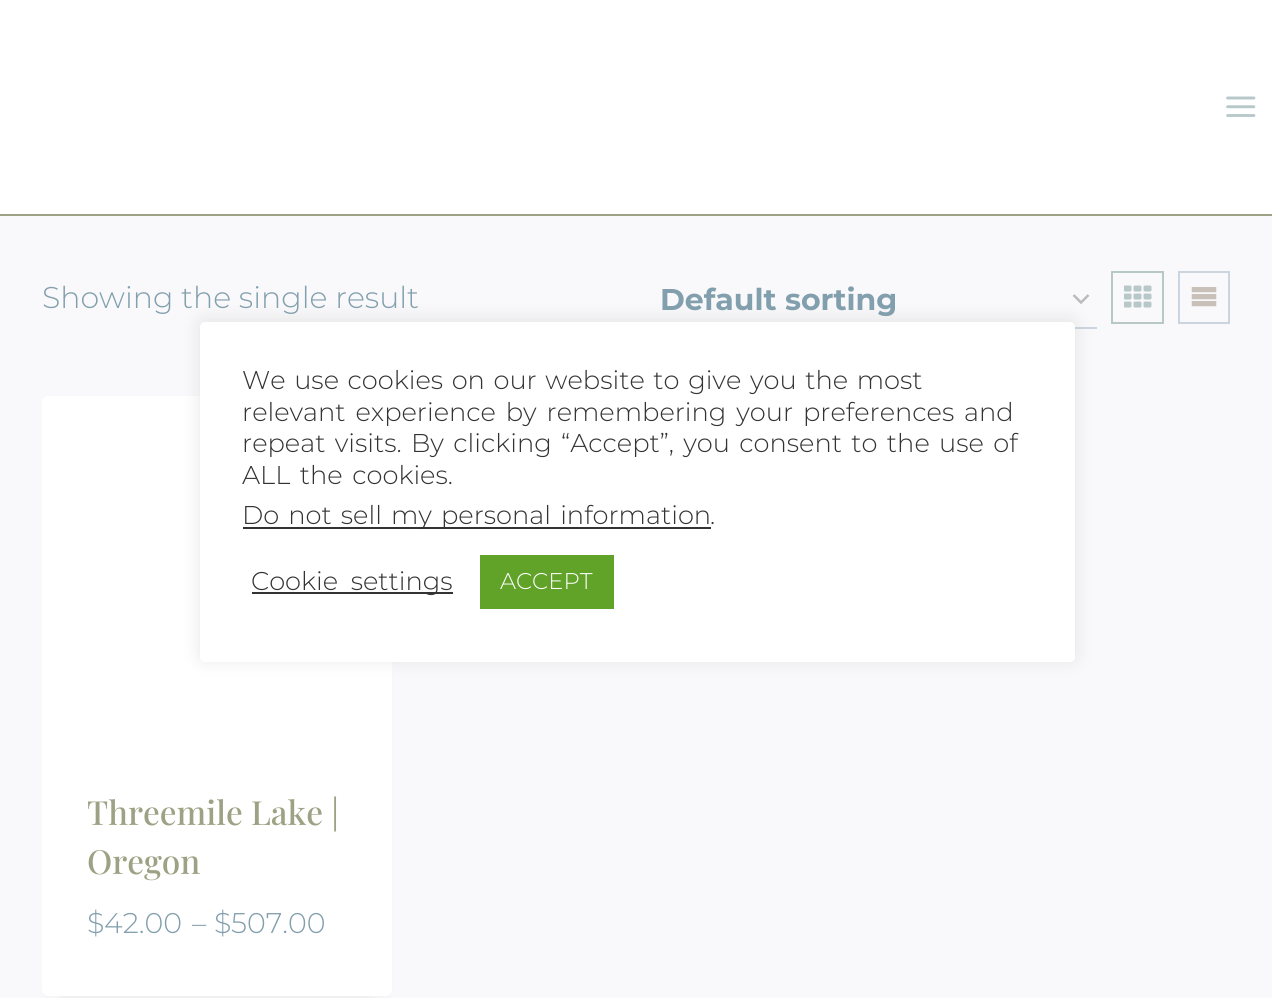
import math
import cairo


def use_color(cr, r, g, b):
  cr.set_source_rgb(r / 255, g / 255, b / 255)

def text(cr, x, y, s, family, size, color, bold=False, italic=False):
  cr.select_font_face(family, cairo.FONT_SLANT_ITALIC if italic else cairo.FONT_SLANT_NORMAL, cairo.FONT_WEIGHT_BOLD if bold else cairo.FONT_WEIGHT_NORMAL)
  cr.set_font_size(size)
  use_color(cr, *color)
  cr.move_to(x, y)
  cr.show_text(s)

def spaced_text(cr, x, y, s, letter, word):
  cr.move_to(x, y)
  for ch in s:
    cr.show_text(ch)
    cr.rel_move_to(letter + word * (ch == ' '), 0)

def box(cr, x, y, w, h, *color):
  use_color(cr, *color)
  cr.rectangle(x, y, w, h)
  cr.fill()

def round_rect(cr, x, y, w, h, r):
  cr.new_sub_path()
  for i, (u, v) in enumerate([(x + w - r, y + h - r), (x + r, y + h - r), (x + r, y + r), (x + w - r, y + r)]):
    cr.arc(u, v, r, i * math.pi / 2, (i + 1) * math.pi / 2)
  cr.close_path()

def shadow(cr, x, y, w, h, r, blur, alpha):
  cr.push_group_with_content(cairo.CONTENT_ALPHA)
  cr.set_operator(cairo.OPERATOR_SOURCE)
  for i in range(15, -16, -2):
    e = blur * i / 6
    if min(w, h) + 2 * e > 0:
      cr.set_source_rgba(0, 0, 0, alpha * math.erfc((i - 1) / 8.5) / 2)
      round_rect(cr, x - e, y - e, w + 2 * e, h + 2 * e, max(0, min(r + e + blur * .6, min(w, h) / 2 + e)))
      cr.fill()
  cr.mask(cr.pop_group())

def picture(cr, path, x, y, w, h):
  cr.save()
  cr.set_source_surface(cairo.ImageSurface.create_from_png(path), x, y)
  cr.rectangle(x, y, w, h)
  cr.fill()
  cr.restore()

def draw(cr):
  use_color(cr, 249, 249, 251)
  cr.paint()
  box(cr, 0, 0, 1272, 214, 255, 255, 255)
  box(cr, 0, 214, 1272, 2, 156, 162, 131)
  picture(cr, "img_01.png", 1226, 96, 30, 21)
  cr.new_path()
  cr.move_to(1073.5, 295)
  cr.line_to(1081, 302.5)
  cr.line_to(1088.5, 295)
  use_color(cr, 187, 187, 187)
  cr.set_line_width(2.5)
  cr.stroke()
  box(cr, 1075, 327, 22, 2, 203, 213, 224)
  cr.rectangle(1112, 272, 51, 51)
  use_color(cr, 184, 200, 201)
  cr.set_line_width(2)
  cr.stroke()
  picture(cr, "img_02.png", 1124, 285, 28, 23)
  cr.rectangle(1179, 272, 50, 51)
  use_color(cr, 203, 213, 224)
  cr.stroke()
  picture(cr, "img_03.png", 1191, 287, 26, 20)
  use_color(cr, 0, 0, 0)
  shadow(cr, 60, 439, 315, 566, 0, 13, 0.05)
  use_color(cr, 255, 255, 255)
  round_rect(cr, 42, 396, 350, 600, 7)
  cr.fill()
  use_color(cr, 172, 171, 171)
  shadow(cr, 200, 320, 875, 340, 5, 9, 0.3)
  use_color(cr, 255, 255, 255)
  round_rect(cr, 200, 322, 875, 340, 5)
  cr.fill()
  box(cr, 243, 527, 468, 2, 51, 51, 51)
  box(cr, 252, 592, 201, 2, 51, 51, 51)
  box(cr, 480, 555, 134, 54, 97, 162, 41)
  text(cr, 42, 308, "Showing the single result", "Montserrat Light", 30, (130, 159, 173))
  text(cr, 660, 310, "Default sorting", "Montserrat", 30, (130, 159, 173), bold=True)
  text(cr, 87, 825, "Threemile Lake |", "Playfair Display Medium", 33.25, (156, 162, 131))
  text(cr, 87, 874, "Oregon", "Playfair Display Medium", 33.25, (156, 162, 131))
  text(cr, 87, 933, "$", "Montserrat Light", 28.5, (130, 159, 173))
  text(cr, 104, 933, "42.00", "Montserrat Light", 28.5, (130, 159, 173))
  text(cr, 192, 933, "–", "Montserrat Light", 28.5, (130, 159, 173))
  text(cr, 214, 933, "$", "Montserrat Light", 28.5, (130, 159, 173))
  text(cr, 231, 933, "507.00", "Montserrat Light", 28.5, (130, 159, 173))
  cr.set_font_size(25.7)
  use_color(cr, 51, 51, 51)
  spaced_text(cr, 242, 389, "We use cookies on our website to give you the most", 0, 2)
  spaced_text(cr, 242, 421, "relevant experience by remembering your preferences and", 0, 3.25)
  spaced_text(cr, 242, 452, "repeat visits. By clicking “Accept”, you consent to the use of", 0, 2.75)
  spaced_text(cr, 242, 484, "ALL the cookies.", 0, 3)
  spaced_text(cr, 242, 524, "Do not sell my personal information", 0, 2.5)
  text(cr, 710, 524, ".", "Montserrat Light", 25.7, (51, 51, 51))
  spaced_text(cr, 251, 590, "Cookie settings", 0, 6)
  text(cr, 500, 589, "ACCEPT", "Montserrat Light", 22.75, (255, 255, 255))


surface = cairo.ImageSurface(cairo.FORMAT_RGB24, 1272, 998)
cr = cairo.Context(surface)
options = cairo.FontOptions()
options.set_hint_metrics(cairo.HINT_METRICS_OFF)
options.set_hint_style(cairo.HINT_STYLE_NONE)
cr.set_font_options(options)
cr.set_miter_limit(4)
draw(cr)
surface.write_to_png("out.png")
